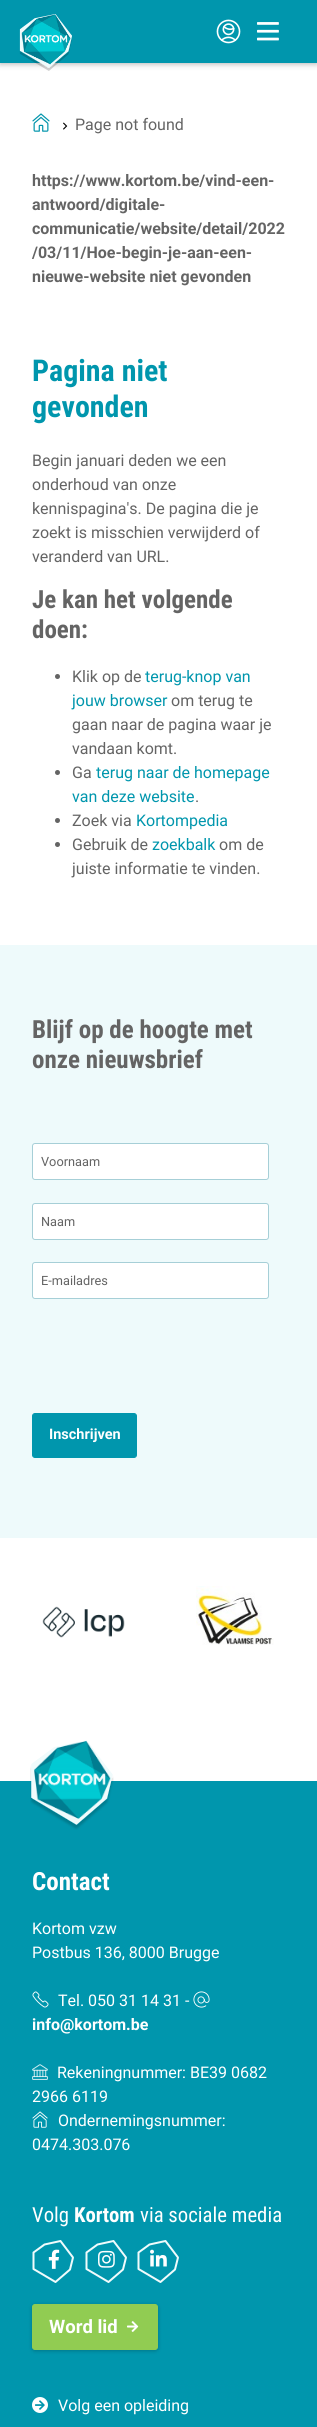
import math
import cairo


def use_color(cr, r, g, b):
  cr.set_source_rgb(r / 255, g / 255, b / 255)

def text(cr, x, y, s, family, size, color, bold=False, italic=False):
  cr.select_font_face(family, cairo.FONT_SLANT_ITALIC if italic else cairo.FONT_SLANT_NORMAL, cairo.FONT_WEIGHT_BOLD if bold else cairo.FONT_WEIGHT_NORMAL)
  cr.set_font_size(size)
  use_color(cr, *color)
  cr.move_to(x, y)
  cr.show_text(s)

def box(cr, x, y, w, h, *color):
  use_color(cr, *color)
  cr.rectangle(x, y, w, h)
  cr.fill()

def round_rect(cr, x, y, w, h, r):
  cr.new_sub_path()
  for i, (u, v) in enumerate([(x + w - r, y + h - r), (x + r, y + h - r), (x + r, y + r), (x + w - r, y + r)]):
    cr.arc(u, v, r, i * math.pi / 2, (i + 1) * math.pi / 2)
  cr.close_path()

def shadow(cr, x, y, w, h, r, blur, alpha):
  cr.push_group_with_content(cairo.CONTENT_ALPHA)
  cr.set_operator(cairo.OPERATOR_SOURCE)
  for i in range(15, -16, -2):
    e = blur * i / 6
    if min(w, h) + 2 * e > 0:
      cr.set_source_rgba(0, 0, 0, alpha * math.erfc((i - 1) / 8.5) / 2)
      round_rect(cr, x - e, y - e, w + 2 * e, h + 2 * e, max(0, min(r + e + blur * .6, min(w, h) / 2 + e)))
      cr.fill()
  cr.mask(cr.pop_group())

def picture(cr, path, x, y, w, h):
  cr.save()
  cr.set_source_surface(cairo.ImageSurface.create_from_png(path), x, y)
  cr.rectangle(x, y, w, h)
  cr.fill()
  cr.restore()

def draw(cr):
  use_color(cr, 255, 255, 255)
  cr.paint()
  use_color(cr, 0, 0, 0)
  shadow(cr, 0, 0, 317, 63, 0, 3.5, 0.38)
  box(cr, 0, 0, 317, 63, 0, 150, 173)
  picture(cr, "img_01.png", 19, 14, 53, 57)
  picture(cr, "img_02.png", 216, 19, 25, 25)
  picture(cr, "img_03.png", 257, 22, 22, 19)
  picture(cr, "img_04.png", 32, 113, 18, 19)
  picture(cr, "img_05.png", 63, 122, 5, 8)
  use_color(cr, 100, 100, 100)
  cr.arc(57.5, 676.5, 2.5, 0, 2 * math.pi)
  cr.fill()
  cr.arc(57.5, 772.5, 2.5, 0, 2 * math.pi)
  cr.fill()
  cr.arc(57.5, 820.5, 2.5, 0, 2 * math.pi)
  cr.fill()
  cr.arc(57.5, 844.5, 2.5, 0, 2 * math.pi)
  cr.fill()
  box(cr, 0, 945, 317, 593, 238, 250, 251)
  use_color(cr, 255, 255, 255)
  round_rect(cr, 32, 1143, 237, 37, 3)
  cr.fill()
  round_rect(cr, 32.5, 1143.5, 236, 36, 2.5)
  cr.set_source_rgba(0, 0.467, 0.557, 0.35)
  cr.set_line_width(1)
  cr.stroke()
  use_color(cr, 255, 255, 255)
  round_rect(cr, 32, 1203, 237, 37, 3)
  cr.fill()
  round_rect(cr, 32.5, 1203.5, 236, 36, 2.5)
  cr.set_source_rgba(0, 0.467, 0.557, 0.35)
  cr.stroke()
  use_color(cr, 255, 255, 255)
  round_rect(cr, 32, 1262, 237, 37, 3)
  cr.fill()
  round_rect(cr, 32.5, 1262.5, 236, 36, 2.5)
  cr.set_source_rgba(0, 0.467, 0.557, 0.35)
  cr.stroke()
  use_color(cr, 0, 150, 173)
  round_rect(cr, 32.5, 1413.5, 104, 44, 2.5)
  cr.fill_preserve()
  cr.stroke()
  picture(cr, "img_06.png", 42, 1606, 83, 32)
  picture(cr, "img_07.png", 196, 1586, 78, 59)
  box(cr, 0, 1781, 317, 646, 0, 150, 173)
  picture(cr, "img_08.png", 30, 1740, 84, 90)
  picture(cr, "img_09.png", 32, 1991, 17, 17)
  picture(cr, "img_10.png", 193, 1991, 17, 17)
  picture(cr, "img_11.png", 32, 2064, 16, 16)
  picture(cr, "img_12.png", 32, 2111, 16, 17)
  cr.new_path()
  cr.move_to(33.5, 2252.5)
  cr.line_to(33.5, 2269)
  cr.line_to(55.5, 2282)
  cr.line_to(70, 2269.5)
  cr.line_to(73, 2257.5)
  cr.line_to(60.5, 2241)
  cr.line_to(44.5, 2244.5)
  cr.close_path()
  use_color(cr, 240, 251, 252)
  cr.set_line_width(2)
  cr.set_line_join(cairo.LINE_JOIN_ROUND)
  cr.stroke()
  picture(cr, "img_13.png", 48, 2249, 12, 20)
  cr.new_path()
  cr.move_to(86.5, 2252.5)
  cr.line_to(86.5, 2269)
  cr.line_to(108.5, 2282)
  cr.line_to(123, 2269.5)
  cr.line_to(126, 2257.5)
  cr.line_to(113.5, 2241)
  cr.line_to(97.5, 2244.5)
  cr.close_path()
  cr.stroke()
  picture(cr, "img_14.png", 98, 2250, 17, 18)
  cr.new_path()
  cr.move_to(138.5, 2252.5)
  cr.line_to(138.5, 2269)
  cr.line_to(160.5, 2282)
  cr.line_to(175, 2269.5)
  cr.line_to(178, 2257.5)
  cr.line_to(165.5, 2241)
  cr.line_to(149.5, 2244.5)
  cr.close_path()
  cr.stroke()
  picture(cr, "img_15.png", 150, 2249, 17, 18)
  use_color(cr, 0, 0, 0)
  shadow(cr, 32, 2305, 126, 46, 3, 2, 0.22)
  use_color(cr, 145, 204, 82)
  round_rect(cr, 32.5, 2304.5, 125, 45, 2.5)
  cr.fill_preserve()
  cr.set_line_width(1)
  cr.set_line_join(cairo.LINE_JOIN_MITER)
  cr.stroke()
  picture(cr, "img_16.png", 127, 2321, 12, 11)
  use_color(cr, 255, 255, 255)
  cr.arc(40, 2405, 8, 0, 2 * math.pi)
  cr.fill()
  picture(cr, "img_17.png", 35, 2400, 10, 10)
  text(cr, 75, 130, "Page not found", "Roboto", 16, (100, 100, 100))
  text(cr, 32, 186, "https://www.kortom.be/vind-een-", "Roboto", 16, (100, 100, 100), bold=True)
  text(cr, 32, 210, "antwoord/digitale-", "Roboto", 16, (100, 100, 100), bold=True)
  text(cr, 32, 234, "communicatie/website/detail/2022", "Roboto", 16, (100, 100, 100), bold=True)
  text(cr, 32, 258, "/03/11/Hoe-begin-je-aan-een-", "Roboto", 16, (100, 100, 100), bold=True)
  text(cr, 32, 282, "nieuwe-website niet gevonden", "Roboto", 16, (100, 100, 100), bold=True)
  text(cr, 32, 381, "Pagina niet", "Roboto Condensed", 30, (0, 150, 173), bold=True)
  text(cr, 32, 417, "gevonden", "Roboto Condensed", 30, (0, 150, 173), bold=True)
  text(cr, 32, 466, "Begin januari deden we een", "Roboto", 16, (100, 100, 100))
  text(cr, 32, 490, "onderhoud van onze", "Roboto", 16, (100, 100, 100))
  text(cr, 32, 514, "kennispagina's. De pagina die je", "Roboto", 16, (100, 100, 100))
  text(cr, 32, 538, "zoekt is misschien verwijderd of", "Roboto", 16, (100, 100, 100))
  text(cr, 32, 562, "veranderd van URL.", "Roboto", 16, (100, 100, 100))
  text(cr, 32, 608, "Je kan het volgende", "Roboto Condensed", 25, (100, 100, 100), bold=True)
  text(cr, 32, 638, "doen:", "Roboto Condensed", 25, (100, 100, 100), bold=True)
  text(cr, 72, 682, "Klik op de", "Roboto", 16, (100, 100, 100))
  text(cr, 145, 682, "terug-knop van", "Roboto", 16, (0, 150, 173))
  text(cr, 72, 706, "jouw browser", "Roboto", 16, (0, 150, 173))
  text(cr, 171, 706, "om terug te", "Roboto", 16, (100, 100, 100))
  text(cr, 72, 730, "gaan naar de pagina waar je", "Roboto", 16, (100, 100, 100))
  text(cr, 72, 754, "vandaan komt.", "Roboto", 16, (100, 100, 100))
  text(cr, 72, 778, "Ga", "Roboto", 16, (100, 100, 100))
  text(cr, 96, 778, "terug naar de homepage", "Roboto", 16, (0, 150, 173))
  text(cr, 72, 802, "van deze website", "Roboto", 16, (0, 150, 173))
  text(cr, 195, 802, ".", "Roboto", 16, (100, 100, 100))
  text(cr, 72, 826, "Zoek via", "Roboto", 16, (100, 100, 100))
  text(cr, 136, 826, "Kortompedia", "Roboto", 16, (0, 150, 173))
  text(cr, 72, 850, "Gebruik de", "Roboto", 16, (100, 100, 100))
  text(cr, 152, 850, "zoekbalk", "Roboto", 16, (0, 150, 173))
  text(cr, 219, 850, "om de", "Roboto", 16, (100, 100, 100))
  text(cr, 72, 874, "juiste informatie te vinden.", "Roboto", 16, (100, 100, 100))
  text(cr, 32, 1038, "Blijf op de hoogte met", "Roboto Condensed", 25, (100, 100, 100), bold=True)
  text(cr, 32, 1068, "onze nieuwsbrief", "Roboto Condensed", 25, (100, 100, 100), bold=True)
  text(cr, 41, 1166, "Voornaam", "Roboto", 12.75, (100, 100, 100))
  text(cr, 41, 1226, "Naam", "Roboto", 12.75, (100, 100, 100))
  text(cr, 41, 1285, "E-mailadres", "Roboto", 12.75, (100, 100, 100))
  text(cr, 49, 1439, "Inschrijven", "Roboto", 14.5, (255, 255, 255), bold=True)
  text(cr, 32, 1890, "Contact", "Roboto Condensed", 25, (255, 255, 255), bold=True)
  text(cr, 32, 1934, "Kortom vzw", "Roboto", 16, (255, 255, 255))
  text(cr, 32, 1958, "Postbus 136, 8000 Brugge", "Roboto", 16, (255, 255, 255))
  text(cr, 58, 2006, "Tel. 050 31 14 31 -", "Roboto", 16, (255, 255, 255))
  text(cr, 32, 2030, "info@kortom.be", "Roboto", 16, (255, 255, 255), bold=True)
  text(cr, 57, 2078, "Rekeningnummer: BE39 0682", "Roboto", 16, (255, 255, 255))
  text(cr, 32, 2102, "2966 6119", "Roboto", 16, (255, 255, 255))
  text(cr, 58, 2126, "Ondernemingsnummer:", "Roboto", 16, (255, 255, 255))
  text(cr, 32, 2150, "0474.303.076", "Roboto", 16, (255, 255, 255))
  text(cr, 32, 2222, "Volg", "Roboto Condensed", 20.75, (255, 255, 255))
  text(cr, 74, 2222, "Kortom", "Roboto Condensed", 20.75, (255, 255, 255), bold=True)
  text(cr, 140, 2222, "via sociale media", "Roboto Condensed", 20.75, (255, 255, 255))
  text(cr, 49, 2333, "Word lid", "Roboto", 18.5, (255, 255, 255), bold=True)
  text(cr, 58, 2411, "Volg een opleiding", "Roboto", 16, (255, 255, 255))


surface = cairo.ImageSurface(cairo.FORMAT_RGB24, 317, 2427)
cr = cairo.Context(surface)
options = cairo.FontOptions()
options.set_hint_metrics(cairo.HINT_METRICS_OFF)
options.set_hint_style(cairo.HINT_STYLE_NONE)
cr.set_font_options(options)
cr.set_miter_limit(4)
draw(cr)
surface.write_to_png("out.png")
